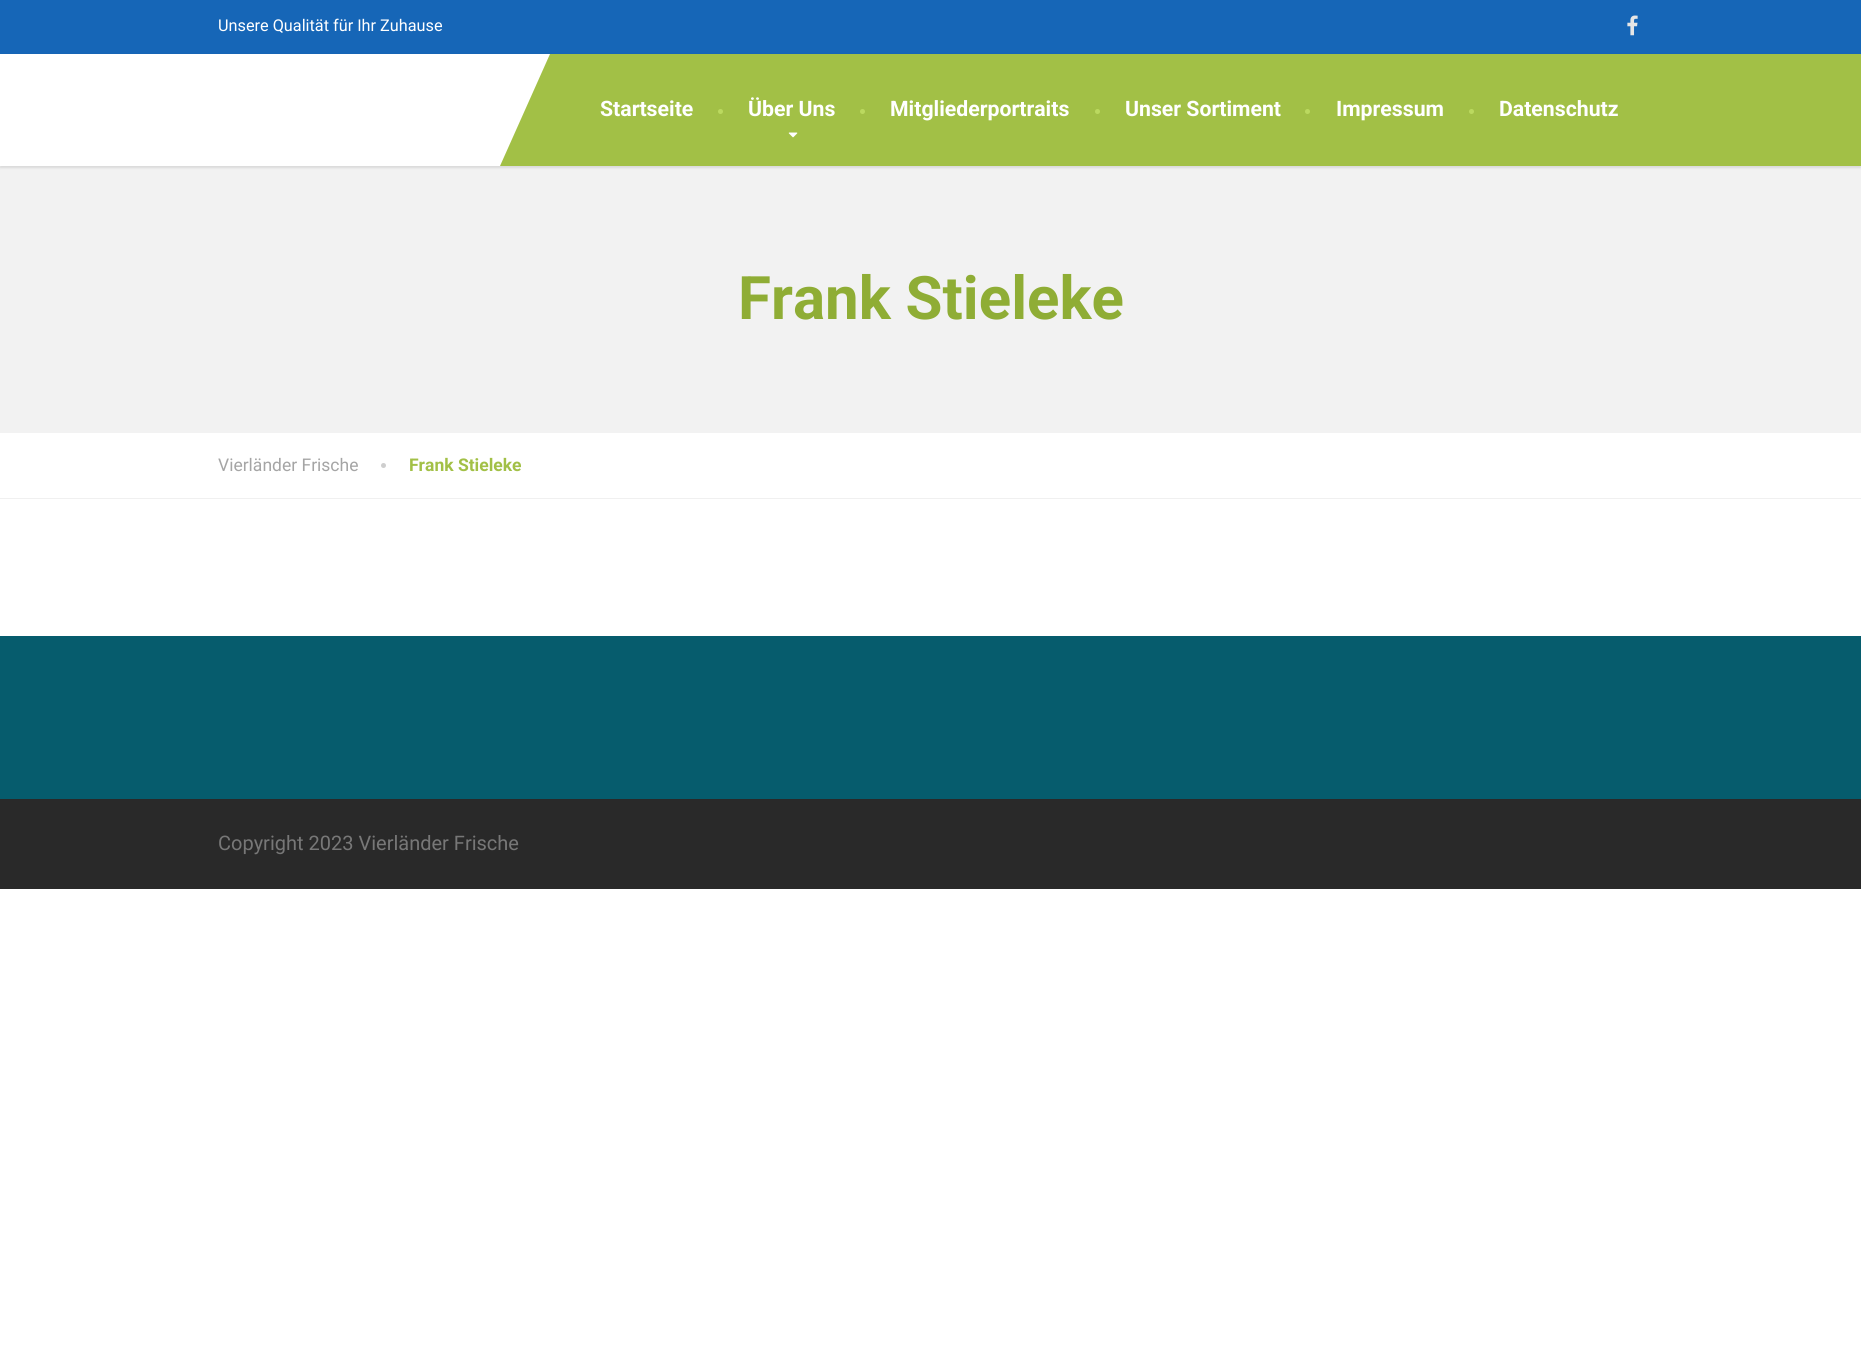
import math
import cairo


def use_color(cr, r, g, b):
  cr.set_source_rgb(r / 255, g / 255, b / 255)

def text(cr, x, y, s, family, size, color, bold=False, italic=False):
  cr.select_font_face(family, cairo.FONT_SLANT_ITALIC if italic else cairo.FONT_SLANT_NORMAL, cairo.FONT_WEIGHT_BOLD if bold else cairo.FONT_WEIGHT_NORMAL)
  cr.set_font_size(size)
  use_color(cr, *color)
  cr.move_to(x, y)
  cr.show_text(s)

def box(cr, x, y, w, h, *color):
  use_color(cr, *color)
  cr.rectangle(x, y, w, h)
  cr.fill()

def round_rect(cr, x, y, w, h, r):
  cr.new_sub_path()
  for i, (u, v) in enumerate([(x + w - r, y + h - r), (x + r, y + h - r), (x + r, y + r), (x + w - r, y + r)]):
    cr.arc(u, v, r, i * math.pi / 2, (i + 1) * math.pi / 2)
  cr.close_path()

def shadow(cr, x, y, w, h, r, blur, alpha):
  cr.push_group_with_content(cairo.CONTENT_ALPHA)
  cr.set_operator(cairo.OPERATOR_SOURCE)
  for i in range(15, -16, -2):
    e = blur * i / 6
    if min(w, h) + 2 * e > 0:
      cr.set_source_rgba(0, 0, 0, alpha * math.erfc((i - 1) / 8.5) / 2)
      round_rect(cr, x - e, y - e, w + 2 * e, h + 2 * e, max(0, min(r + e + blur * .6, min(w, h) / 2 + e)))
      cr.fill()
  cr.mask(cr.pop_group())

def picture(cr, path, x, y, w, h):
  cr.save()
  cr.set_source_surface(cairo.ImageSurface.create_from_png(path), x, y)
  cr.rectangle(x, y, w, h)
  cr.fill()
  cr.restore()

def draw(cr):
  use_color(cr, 255, 255, 255)
  cr.paint()
  box(cr, 0, 0, 1861, 54, 22, 102, 183)
  picture(cr, "img_01.png", 1627, 15, 11, 21)
  box(cr, 0, 166, 1861, 267, 242, 242, 242)
  use_color(cr, 0, 0, 0)
  shadow(cr, 0, 55, 1861, 113, 0, 1, 0.1)
  box(cr, 0, 54, 500, 112, 255, 255, 255)
  box(cr, 500, 54, 1361, 112, 162, 192, 70)
  use_color(cr, 255, 255, 255)
  cr.new_path()
  cr.move_to(500, 166)
  cr.line_to(500, 54)
  cr.line_to(550, 54)
  cr.close_path()
  cr.fill()
  use_color(cr, 187, 217, 95)
  cr.arc(720.5, 111.5, 2.5, 0, 2 * math.pi)
  cr.fill()
  picture(cr, "img_02.png", 788, 132, 10, 6)
  cr.arc(862.5, 111.5, 2.5, 0, 2 * math.pi)
  cr.fill()
  cr.arc(1097.5, 111.5, 2.5, 0, 2 * math.pi)
  cr.fill()
  cr.arc(1307.5, 111.5, 2.5, 0, 2 * math.pi)
  cr.fill()
  cr.arc(1471.5, 111.5, 2.5, 0, 2 * math.pi)
  cr.fill()
  box(cr, 0, 498, 1861, 1, 240, 240, 240)
  use_color(cr, 206, 206, 206)
  cr.arc(383.5, 465.5, 2.5, 0, 2 * math.pi)
  cr.fill()
  box(cr, 0, 636, 1861, 163, 6, 92, 109)
  box(cr, 0, 799, 1861, 90, 41, 41, 41)
  text(cr, 218, 31, "Unsere Qualität für Ihr Zuhause", "Roboto", 16.25, (255, 255, 255))
  text(cr, 600, 116, "Startseite", "Roboto", 21.25, (255, 255, 255), bold=True)
  text(cr, 748, 116, "Über Uns", "Roboto", 21.25, (255, 255, 255), bold=True)
  text(cr, 890, 116, "Mitgliederportraits", "Roboto", 21.25, (255, 255, 255), bold=True)
  text(cr, 1125, 116, "Unser Sortiment", "Roboto", 21.25, (255, 255, 255), bold=True)
  text(cr, 1336, 116, "Impressum", "Roboto", 21.25, (255, 255, 255), bold=True)
  text(cr, 1499, 116, "Datenschutz", "Roboto", 21.25, (255, 255, 255), bold=True)
  text(cr, 738, 319, "Frank Stieleke", "Roboto", 60, (143, 173, 53), bold=True)
  text(cr, 218, 471, "Vierländer Frische", "Roboto", 17.5, (165, 165, 165))
  text(cr, 409, 471, "Frank Stieleke", "Roboto", 17.5, (162, 192, 70), bold=True)
  text(cr, 218, 850, "Copyright 2023 Vierländer Frische", "Roboto", 20, (119, 119, 119))


surface = cairo.ImageSurface(cairo.FORMAT_RGB24, 1861, 1367)
cr = cairo.Context(surface)
options = cairo.FontOptions()
options.set_hint_metrics(cairo.HINT_METRICS_OFF)
options.set_hint_style(cairo.HINT_STYLE_NONE)
cr.set_font_options(options)
cr.set_miter_limit(4)
draw(cr)
surface.write_to_png("out.png")
